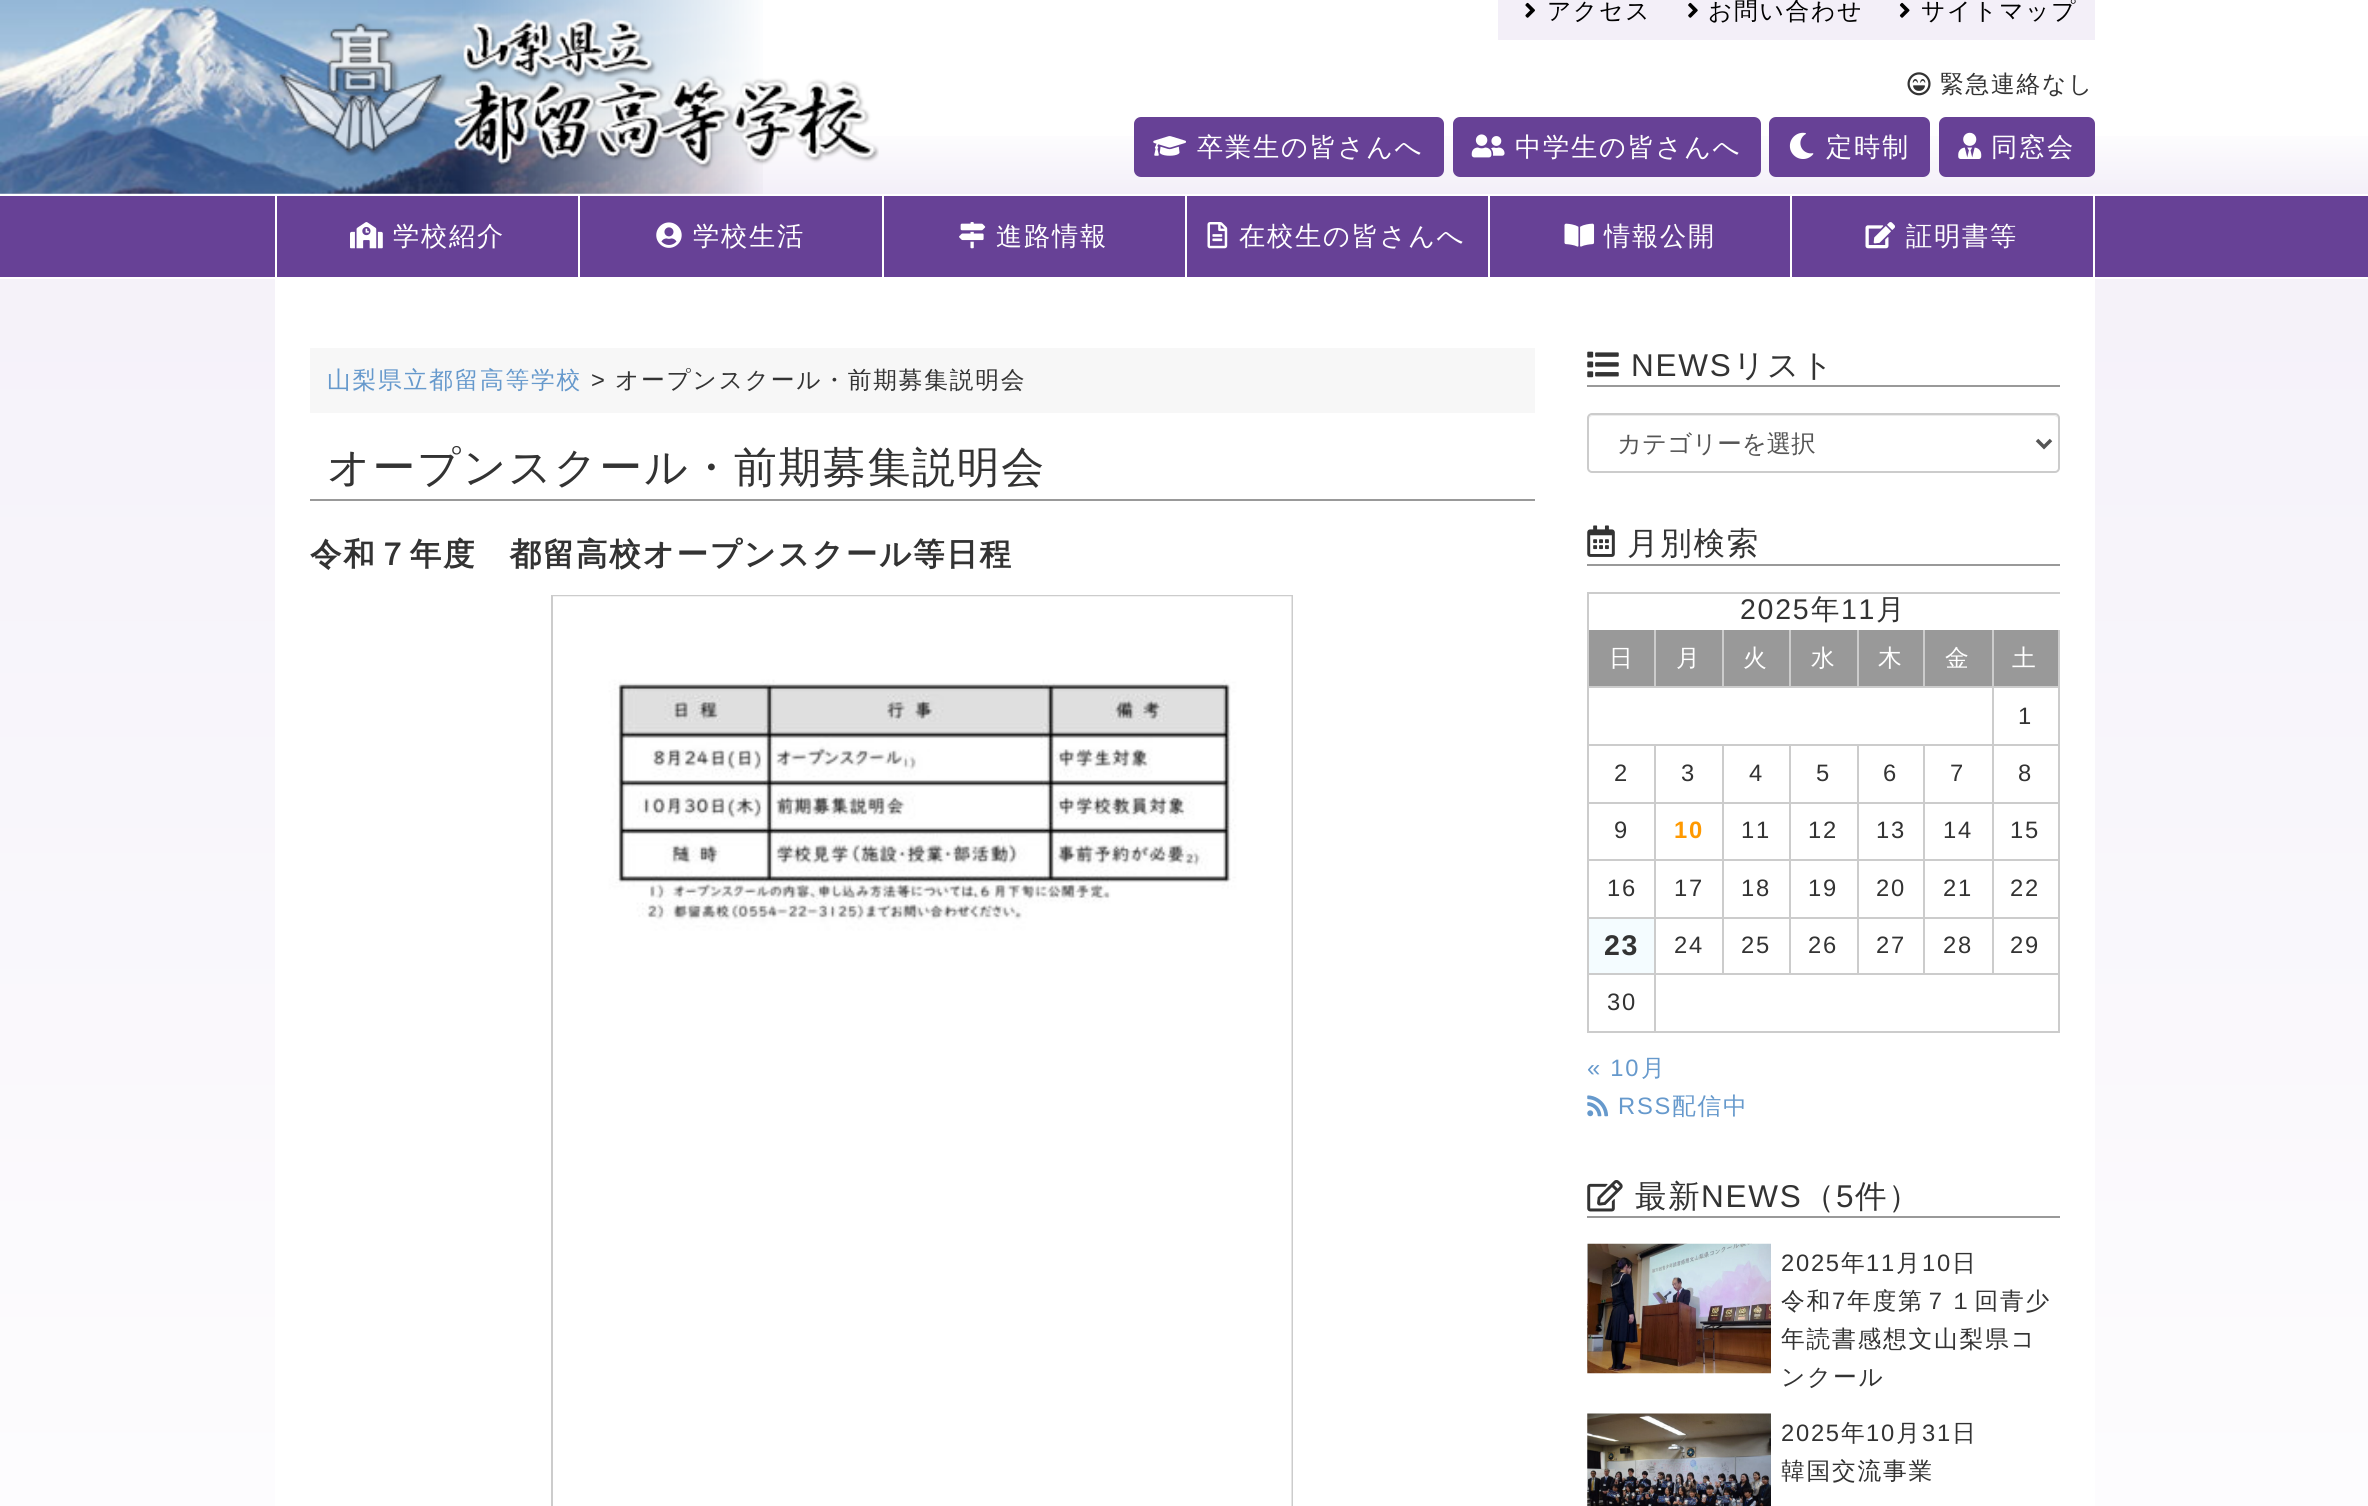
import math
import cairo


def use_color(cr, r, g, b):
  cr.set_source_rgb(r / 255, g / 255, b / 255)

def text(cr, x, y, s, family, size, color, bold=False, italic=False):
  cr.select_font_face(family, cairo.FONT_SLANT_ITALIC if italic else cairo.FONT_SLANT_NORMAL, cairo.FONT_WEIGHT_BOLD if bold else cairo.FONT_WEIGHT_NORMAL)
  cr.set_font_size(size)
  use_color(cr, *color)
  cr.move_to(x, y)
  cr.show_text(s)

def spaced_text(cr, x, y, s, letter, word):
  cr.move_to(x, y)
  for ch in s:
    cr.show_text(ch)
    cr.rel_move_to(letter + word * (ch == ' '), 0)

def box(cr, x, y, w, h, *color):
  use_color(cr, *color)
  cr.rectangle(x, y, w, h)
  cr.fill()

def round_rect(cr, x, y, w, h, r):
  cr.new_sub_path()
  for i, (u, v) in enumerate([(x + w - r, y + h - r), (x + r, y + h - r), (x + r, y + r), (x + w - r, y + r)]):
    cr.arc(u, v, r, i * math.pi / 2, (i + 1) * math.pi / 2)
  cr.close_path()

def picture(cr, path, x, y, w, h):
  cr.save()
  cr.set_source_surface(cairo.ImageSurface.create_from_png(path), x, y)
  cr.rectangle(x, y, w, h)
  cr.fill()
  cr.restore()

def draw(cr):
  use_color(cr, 255, 255, 255)
  cr.paint()
  gradient = cairo.LinearGradient(1185, -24, 1185, 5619)
  gradient.add_color_stop_rgba(0, 0.953, 0.937, 0.973, 1)
  gradient.add_color_stop_rgba(0.33, 1, 1, 1, 1)
  gradient.add_color_stop_rgba(1, 1, 1, 1, 1)
  cr.set_source(gradient)
  cr.rectangle(0, 279, 2368, 1227)
  cr.fill()
  gradient = cairo.LinearGradient(1185, -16, 1185, 194)
  gradient.add_color_stop_rgba(0, 1, 1, 1, 1)
  gradient.add_color_stop_rgba(0.67, 1, 1, 1, 1)
  gradient.add_color_stop_rgba(1, 0.953, 0.937, 0.973, 1)
  cr.set_source(gradient)
  cr.rectangle(0, 136, 2368, 58)
  cr.fill()
  picture(cr, "img_01.png", 0, 0, 763, 194)
  picture(cr, "img_02.png", 278, 18, 601, 152)
  box(cr, 1498, 0, 597, 40, 243, 239, 248)
  picture(cr, "img_03.png", 1525, 2, 10, 16)
  picture(cr, "img_04.png", 1688, 2, 10, 16)
  picture(cr, "img_05.png", 1899, 2, 11, 16)
  picture(cr, "img_06.png", 1907, 72, 24, 24)
  use_color(cr, 103, 65, 150)
  round_rect(cr, 1135, 118, 308, 58, 6)
  cr.fill_preserve()
  cr.stroke()
  picture(cr, "img_07.png", 1153, 136, 33, 20)
  round_rect(cr, 1454, 118, 306, 58, 6)
  cr.fill_preserve()
  cr.stroke()
  picture(cr, "img_08.png", 1471, 134, 34, 24)
  round_rect(cr, 1770, 118, 159, 58, 6)
  cr.fill_preserve()
  cr.stroke()
  picture(cr, "img_09.png", 1789, 132, 25, 27)
  round_rect(cr, 1940, 118, 154, 58, 6)
  cr.fill_preserve()
  cr.stroke()
  picture(cr, "img_10.png", 1958, 132, 24, 27)
  box(cr, 0, 196, 2368, 81, 103, 65, 150)
  box(cr, 275, 196, 2, 81, 255, 255, 255)
  picture(cr, "img_11.png", 350, 222, 33, 27)
  box(cr, 578, 196, 2, 81, 255, 255, 255)
  picture(cr, "img_12.png", 656, 222, 26, 26)
  box(cr, 882, 196, 2, 81, 255, 255, 255)
  picture(cr, "img_13.png", 959, 222, 27, 27)
  box(cr, 1185, 196, 2, 81, 255, 255, 255)
  picture(cr, "img_14.png", 1207, 222, 21, 27)
  box(cr, 1488, 196, 2, 81, 255, 255, 255)
  picture(cr, "img_15.png", 1564, 223, 31, 24)
  box(cr, 2093, 196, 2, 81, 255, 255, 255)
  box(cr, 1790, 196, 2, 81, 255, 255, 255)
  picture(cr, "img_16.png", 1865, 222, 30, 27)
  box(cr, 275, 279, 1820, 1227, 255, 255, 255)
  box(cr, 310, 348, 1225, 65, 247, 247, 247)
  box(cr, 310, 499, 1225, 2, 153, 153, 153)
  cr.rectangle(552, 596, 740, 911)
  use_color(cr, 204, 204, 204)
  cr.stroke()
  picture(cr, "img_17.png", 553, 596, 739, 910)
  box(cr, 1587, 385, 473, 2, 153, 153, 153)
  picture(cr, "img_18.png", 1587, 351, 32, 27)
  use_color(cr, 236, 236, 236)
  cr.new_path()
  cr.move_to(1592, 416)
  cr.line_to(2054, 416)
  cr.curve_to(2056, 416, 2058, 418, 2058, 420)
  cr.curve_to(2058, 417, 2057, 415, 2054, 415)
  cr.line_to(1593, 415)
  cr.curve_to(1590, 415, 1589, 417, 1589, 420)
  cr.curve_to(1589, 418, 1591, 416, 1592, 416)
  cr.close_path()
  cr.fill()
  round_rect(cr, 1588, 414, 471, 58, 4)
  use_color(cr, 204, 204, 204)
  cr.stroke()
  cr.new_path()
  cr.move_to(2037, 440)
  cr.line_to(2044, 447)
  cr.line_to(2051, 440)
  use_color(cr, 85, 85, 85)
  cr.set_line_width(3.5)
  cr.stroke()
  box(cr, 1587, 564, 473, 2, 153, 153, 153)
  picture(cr, "img_19.png", 1587, 525, 28, 32)
  box(cr, 1587, 592, 473, 2, 204, 204, 204)
  box(cr, 1587, 592, 2, 441, 204, 204, 204)
  box(cr, 1589, 630, 65, 56, 153, 153, 153)
  box(cr, 2058, 630, 2, 403, 204, 204, 204)
  box(cr, 1992, 973, 68, 2, 204, 204, 204)
  box(cr, 1992, 917, 2, 58, 204, 204, 204)
  box(cr, 1992, 917, 68, 2, 204, 204, 204)
  box(cr, 1992, 859, 2, 60, 204, 204, 204)
  box(cr, 1992, 859, 68, 2, 204, 204, 204)
  box(cr, 1992, 802, 2, 59, 204, 204, 204)
  box(cr, 1992, 802, 68, 2, 204, 204, 204)
  box(cr, 1992, 744, 2, 59, 204, 204, 204)
  box(cr, 1992, 744, 68, 2, 204, 204, 204)
  box(cr, 1992, 686, 2, 60, 204, 204, 204)
  box(cr, 1992, 686, 68, 2, 204, 204, 204)
  box(cr, 1992, 630, 2, 58, 204, 204, 204)
  box(cr, 1923, 686, 70, 2, 204, 204, 204)
  box(cr, 1923, 630, 2, 58, 204, 204, 204)
  box(cr, 1857, 686, 68, 2, 204, 204, 204)
  box(cr, 1857, 630, 2, 58, 204, 204, 204)
  box(cr, 1789, 686, 70, 2, 204, 204, 204)
  box(cr, 1789, 630, 2, 58, 204, 204, 204)
  box(cr, 1722, 686, 68, 2, 204, 204, 204)
  box(cr, 1722, 630, 2, 58, 204, 204, 204)
  box(cr, 1654, 686, 70, 2, 204, 204, 204)
  box(cr, 1654, 630, 2, 58, 204, 204, 204)
  box(cr, 1587, 686, 69, 2, 204, 204, 204)
  box(cr, 1656, 630, 66, 56, 153, 153, 153)
  box(cr, 1724, 630, 65, 56, 153, 153, 153)
  box(cr, 1791, 630, 66, 56, 153, 153, 153)
  box(cr, 1859, 630, 64, 56, 153, 153, 153)
  box(cr, 1925, 630, 67, 56, 153, 153, 153)
  box(cr, 1994, 630, 64, 56, 153, 153, 153)
  box(cr, 1923, 973, 70, 2, 204, 204, 204)
  box(cr, 1923, 917, 2, 58, 204, 204, 204)
  box(cr, 1923, 917, 70, 2, 204, 204, 204)
  box(cr, 1923, 859, 2, 60, 204, 204, 204)
  box(cr, 1923, 859, 70, 2, 204, 204, 204)
  box(cr, 1923, 802, 2, 59, 204, 204, 204)
  box(cr, 1923, 802, 70, 2, 204, 204, 204)
  box(cr, 1923, 744, 2, 59, 204, 204, 204)
  box(cr, 1857, 973, 68, 2, 204, 204, 204)
  box(cr, 1857, 917, 2, 58, 204, 204, 204)
  box(cr, 1857, 917, 68, 2, 204, 204, 204)
  box(cr, 1857, 859, 2, 60, 204, 204, 204)
  box(cr, 1857, 859, 68, 2, 204, 204, 204)
  box(cr, 1857, 802, 2, 59, 204, 204, 204)
  box(cr, 1857, 802, 68, 2, 204, 204, 204)
  box(cr, 1857, 744, 2, 59, 204, 204, 204)
  box(cr, 1789, 973, 70, 2, 204, 204, 204)
  box(cr, 1789, 917, 2, 58, 204, 204, 204)
  box(cr, 1789, 917, 70, 2, 204, 204, 204)
  box(cr, 1789, 859, 2, 60, 204, 204, 204)
  box(cr, 1789, 859, 70, 2, 204, 204, 204)
  box(cr, 1789, 802, 2, 59, 204, 204, 204)
  box(cr, 1789, 802, 70, 2, 204, 204, 204)
  box(cr, 1789, 744, 2, 59, 204, 204, 204)
  box(cr, 1722, 973, 68, 2, 204, 204, 204)
  box(cr, 1722, 917, 2, 58, 204, 204, 204)
  box(cr, 1722, 917, 68, 2, 204, 204, 204)
  box(cr, 1722, 859, 2, 60, 204, 204, 204)
  box(cr, 1722, 859, 68, 2, 204, 204, 204)
  box(cr, 1722, 802, 2, 59, 204, 204, 204)
  box(cr, 1722, 802, 68, 2, 204, 204, 204)
  box(cr, 1722, 744, 2, 59, 204, 204, 204)
  box(cr, 1654, 1031, 406, 2, 204, 204, 204)
  box(cr, 1654, 973, 2, 60, 204, 204, 204)
  box(cr, 1654, 973, 70, 2, 204, 204, 204)
  box(cr, 1654, 917, 2, 58, 204, 204, 204)
  box(cr, 1654, 917, 70, 2, 204, 204, 204)
  box(cr, 1654, 859, 2, 60, 204, 204, 204)
  box(cr, 1654, 859, 70, 2, 204, 204, 204)
  box(cr, 1654, 802, 2, 59, 204, 204, 204)
  box(cr, 1654, 802, 70, 2, 204, 204, 204)
  box(cr, 1654, 744, 2, 59, 204, 204, 204)
  box(cr, 1587, 744, 406, 2, 204, 204, 204)
  box(cr, 1587, 802, 69, 2, 204, 204, 204)
  box(cr, 1587, 859, 69, 2, 204, 204, 204)
  box(cr, 1587, 917, 69, 2, 204, 204, 204)
  box(cr, 1589, 919, 65, 54, 244, 252, 255)
  box(cr, 1587, 973, 69, 2, 204, 204, 204)
  box(cr, 1587, 1031, 69, 2, 204, 204, 204)
  picture(cr, "img_20.png", 1587, 1095, 22, 22)
  box(cr, 1587, 1216, 473, 2, 153, 153, 153)
  picture(cr, "img_21.png", 1587, 1180, 36, 32)
  picture(cr, "img_22.png", 1587, 1243, 184, 131)
  picture(cr, "img_23.png", 1587, 1413, 184, 93)
  cr.select_font_face("WenQuanYi Zen Hei Medium")
  cr.set_font_size(23.75)
  use_color(cr, 0, 0, 0)
  spaced_text(cr, 1547, 19, "アクセス", 1.75, 0)
  spaced_text(cr, 1708, 19, "お問い合わせ", 1.75, 0)
  spaced_text(cr, 1921, 19, "サイトマップ", 1.75, 0)
  use_color(cr, 51, 51, 51)
  spaced_text(cr, 1940, 92, "緊急連絡なし", 1.75, 0)
  cr.set_font_size(26.25)
  use_color(cr, 255, 255, 255)
  spaced_text(cr, 1197, 156, "卒業生の皆さんへ", 1.75, 0)
  spaced_text(cr, 1515, 156, "中学生の皆さんへ", 1.75, 0)
  spaced_text(cr, 1826, 156, "定時制", 1.75, 0)
  spaced_text(cr, 1991, 156, "同窓会", 1.75, 0)
  spaced_text(cr, 393, 245, "学校紹介", 1.75, 0)
  spaced_text(cr, 693, 245, "学校生活", 1.75, 0)
  spaced_text(cr, 996, 245, "進路情報", 1.75, 0)
  spaced_text(cr, 1239, 245, "在校生の皆さんへ", 1.75, 0)
  spaced_text(cr, 1604, 245, "情報公開", 1.75, 0)
  spaced_text(cr, 1906, 245, "証明書等", 1.75, 0)
  cr.set_font_size(23.75)
  use_color(cr, 102, 153, 204)
  spaced_text(cr, 327, 388, "山梨県立都留高等学校", 1.75, 0)
  cr.select_font_face("Liberation Sans")
  use_color(cr, 51, 51, 51)
  spaced_text(cr, 591, 388, ">", 1.75, 0)
  cr.select_font_face("WenQuanYi Zen Hei Medium")
  spaced_text(cr, 615, 388, "オープンスクール・前期募集説明会", 1.75, 0)
  cr.set_font_size(42.8)
  spaced_text(cr, 327, 482, "オープンスクール・前期募集説明会", 1.75, 0)
  cr.select_font_face("WenQuanYi Zen Hei", cairo.FONT_SLANT_NORMAL, cairo.FONT_WEIGHT_BOLD)
  cr.set_font_size(31.5)
  spaced_text(cr, 310, 565, "令和７年度　都留高校オープンスクール等日程", 1.75, 0)
  cr.select_font_face("Liberation Sans")
  spaced_text(cr, 1631, 376, "NEWS", 1.75, 0)
  cr.select_font_face("WenQuanYi Zen Hei Medium")
  spaced_text(cr, 1733, 376, "リスト", 1.75, 0)
  text(cr, 1617, 452, "カテゴリーを選択", "WenQuanYi Zen Hei Medium", 24.5, (85, 85, 85))
  cr.set_font_size(31.5)
  use_color(cr, 51, 51, 51)
  spaced_text(cr, 1627, 554, "月別検索", 1.75, 0)
  cr.select_font_face("Liberation Sans")
  cr.set_font_size(28.5)
  spaced_text(cr, 1740, 619, "2025", 1.75, 0)
  cr.select_font_face("WenQuanYi Zen Hei Medium")
  spaced_text(cr, 1811, 619, "年", 1.75, 0)
  cr.select_font_face("Liberation Sans")
  spaced_text(cr, 1841, 619, "11", 1.75, 0)
  cr.select_font_face("WenQuanYi Zen Hei Medium")
  spaced_text(cr, 1876, 619, "月", 1.75, 0)
  cr.set_font_size(23.75)
  use_color(cr, 255, 255, 255)
  spaced_text(cr, 1609, 666, "日", 1.75, 0)
  spaced_text(cr, 1676, 666, "月", 1.75, 0)
  spaced_text(cr, 1743, 666, "火", 1.75, 0)
  spaced_text(cr, 1811, 666, "水", 1.75, 0)
  spaced_text(cr, 1878, 666, "木", 1.75, 0)
  spaced_text(cr, 1945, 666, "金", 1.75, 0)
  spaced_text(cr, 2012, 666, "土", 1.75, 0)
  cr.select_font_face("Liberation Sans")
  use_color(cr, 51, 51, 51)
  spaced_text(cr, 2018, 724, "1", 1.75, 0)
  spaced_text(cr, 1614, 781, "2", 1.75, 0)
  spaced_text(cr, 1681, 781, "3", 1.75, 0)
  spaced_text(cr, 1749, 781, "4", 1.75, 0)
  spaced_text(cr, 1816, 781, "5", 1.75, 0)
  spaced_text(cr, 1883, 781, "6", 1.75, 0)
  spaced_text(cr, 1950, 781, "7", 1.75, 0)
  spaced_text(cr, 2018, 781, "8", 1.75, 0)
  spaced_text(cr, 1614, 838, "9", 1.75, 0)
  cr.select_font_face("Liberation Sans", cairo.FONT_SLANT_NORMAL, cairo.FONT_WEIGHT_BOLD)
  use_color(cr, 255, 153, 0)
  spaced_text(cr, 1674, 838, "10", 1.75, 0)
  cr.select_font_face("Liberation Sans")
  use_color(cr, 51, 51, 51)
  spaced_text(cr, 1741, 838, "11", 1.75, 0)
  spaced_text(cr, 1808, 838, "12", 1.75, 0)
  spaced_text(cr, 1876, 838, "13", 1.75, 0)
  spaced_text(cr, 1943, 838, "14", 1.75, 0)
  spaced_text(cr, 2010, 838, "15", 1.75, 0)
  spaced_text(cr, 1607, 896, "16", 1.75, 0)
  spaced_text(cr, 1674, 896, "17", 1.75, 0)
  spaced_text(cr, 1741, 896, "18", 1.75, 0)
  spaced_text(cr, 1808, 896, "19", 1.75, 0)
  spaced_text(cr, 1876, 896, "20", 1.75, 0)
  spaced_text(cr, 1943, 896, "21", 1.75, 0)
  spaced_text(cr, 2010, 896, "22", 1.75, 0)
  cr.select_font_face("Liberation Sans", cairo.FONT_SLANT_NORMAL, cairo.FONT_WEIGHT_BOLD)
  cr.set_font_size(28.5)
  spaced_text(cr, 1604, 955, "23", 1.75, 0)
  cr.select_font_face("Liberation Sans")
  cr.set_font_size(23.75)
  spaced_text(cr, 1674, 953, "24", 1.75, 0)
  spaced_text(cr, 1741, 953, "25", 1.75, 0)
  spaced_text(cr, 1808, 953, "26", 1.75, 0)
  spaced_text(cr, 1876, 953, "27", 1.75, 0)
  spaced_text(cr, 1943, 953, "28", 1.75, 0)
  spaced_text(cr, 2010, 953, "29", 1.75, 0)
  spaced_text(cr, 1607, 1010, "30", 1.75, 0)
  use_color(cr, 102, 153, 204)
  spaced_text(cr, 1587, 1076, "« 10", 1.75, 0)
  cr.select_font_face("WenQuanYi Zen Hei Medium")
  spaced_text(cr, 1641, 1076, "月", 1.75, 0)
  cr.select_font_face("Liberation Sans")
  spaced_text(cr, 1618, 1114, "RSS", 1.75, 0)
  cr.select_font_face("WenQuanYi Zen Hei Medium")
  spaced_text(cr, 1672, 1114, "配信中", 1.75, 0)
  cr.set_font_size(31.5)
  use_color(cr, 51, 51, 51)
  spaced_text(cr, 1635, 1207, "最新", 1.75, 0)
  cr.select_font_face("Liberation Sans")
  spaced_text(cr, 1701, 1207, "NEWS", 1.75, 0)
  cr.select_font_face("WenQuanYi Zen Hei Medium")
  spaced_text(cr, 1803, 1207, "（", 1.75, 0)
  cr.select_font_face("Liberation Sans")
  spaced_text(cr, 1836, 1207, "5", 1.75, 0)
  cr.select_font_face("WenQuanYi Zen Hei Medium")
  spaced_text(cr, 1855, 1207, "件）", 1.75, 0)
  cr.select_font_face("Liberation Sans")
  cr.set_font_size(23.75)
  spaced_text(cr, 1781, 1271, "2025", 1.75, 0)
  cr.select_font_face("WenQuanYi Zen Hei Medium")
  spaced_text(cr, 1841, 1271, "年", 1.75, 0)
  cr.select_font_face("Liberation Sans")
  spaced_text(cr, 1866, 1271, "11", 1.75, 0)
  cr.select_font_face("WenQuanYi Zen Hei Medium")
  spaced_text(cr, 1896, 1271, "月", 1.75, 0)
  cr.select_font_face("Liberation Sans")
  spaced_text(cr, 1922, 1271, "10", 1.75, 0)
  cr.select_font_face("WenQuanYi Zen Hei Medium")
  spaced_text(cr, 1952, 1271, "日", 1.75, 0)
  spaced_text(cr, 1781, 1309, "令和", 1.75, 0)
  cr.select_font_face("Liberation Sans")
  spaced_text(cr, 1832, 1309, "7", 1.75, 0)
  cr.select_font_face("WenQuanYi Zen Hei Medium")
  spaced_text(cr, 1847, 1309, "年度第７１回青少", 1.75, 0)
  spaced_text(cr, 1781, 1347, "年読書感想文山梨県コ", 1.75, 0)
  spaced_text(cr, 1781, 1385, "ンクール", 1.75, 0)
  cr.select_font_face("Liberation Sans")
  spaced_text(cr, 1781, 1441, "2025", 1.75, 0)
  cr.select_font_face("WenQuanYi Zen Hei Medium")
  spaced_text(cr, 1841, 1441, "年", 1.75, 0)
  cr.select_font_face("Liberation Sans")
  spaced_text(cr, 1866, 1441, "10", 1.75, 0)
  cr.select_font_face("WenQuanYi Zen Hei Medium")
  spaced_text(cr, 1896, 1441, "月", 1.75, 0)
  cr.select_font_face("Liberation Sans")
  spaced_text(cr, 1922, 1441, "31", 1.75, 0)
  cr.select_font_face("WenQuanYi Zen Hei Medium")
  spaced_text(cr, 1952, 1441, "日", 1.75, 0)
  spaced_text(cr, 1781, 1479, "韓国交流事業", 1.75, 0)


surface = cairo.ImageSurface(cairo.FORMAT_RGB24, 2368, 1506)
cr = cairo.Context(surface)
options = cairo.FontOptions()
options.set_hint_metrics(cairo.HINT_METRICS_OFF)
options.set_hint_style(cairo.HINT_STYLE_NONE)
cr.set_font_options(options)
cr.set_miter_limit(4)
draw(cr)
surface.write_to_png("out.png")
